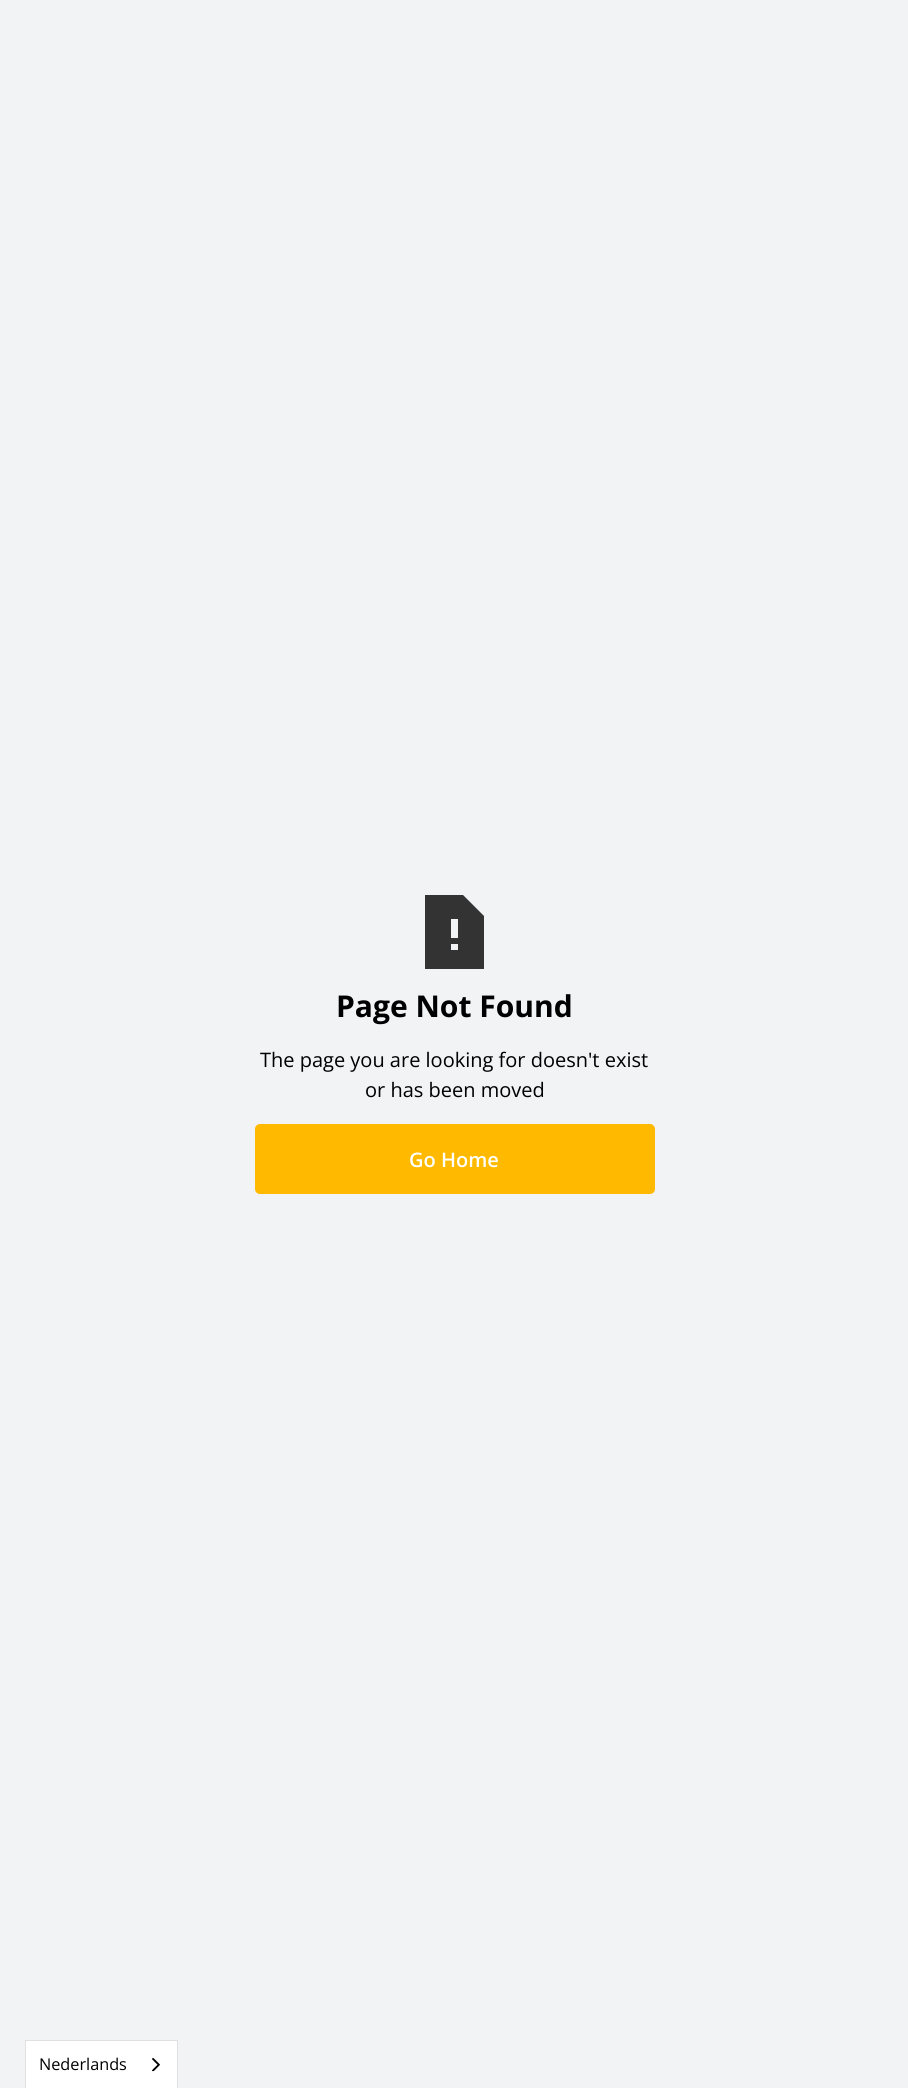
import math
import cairo


def use_color(cr, r, g, b):
  cr.set_source_rgb(r / 255, g / 255, b / 255)

def text(cr, x, y, s, family, size, color, bold=False, italic=False):
  cr.select_font_face(family, cairo.FONT_SLANT_ITALIC if italic else cairo.FONT_SLANT_NORMAL, cairo.FONT_WEIGHT_BOLD if bold else cairo.FONT_WEIGHT_NORMAL)
  cr.set_font_size(size)
  use_color(cr, *color)
  cr.move_to(x, y)
  cr.show_text(s)

def round_rect(cr, x, y, w, h, r):
  cr.new_sub_path()
  for i, (u, v) in enumerate([(x + w - r, y + h - r), (x + r, y + h - r), (x + r, y + r), (x + w - r, y + r)]):
    cr.arc(u, v, r, i * math.pi / 2, (i + 1) * math.pi / 2)
  cr.close_path()

def picture(cr, path, x, y, w, h):
  cr.save()
  cr.set_source_surface(cairo.ImageSurface.create_from_png(path), x, y)
  cr.rectangle(x, y, w, h)
  cr.fill()
  cr.restore()

def draw(cr):
  use_color(cr, 242, 243, 245)
  cr.paint()
  use_color(cr, 51, 51, 51)
  cr.set_fill_rule(cairo.FILL_RULE_EVEN_ODD)
  cr.new_path()
  cr.move_to(425, 895)
  cr.line_to(463, 895)
  cr.line_to(484, 916)
  cr.line_to(484, 969)
  cr.line_to(425, 969)
  cr.close_path()
  cr.move_to(451, 919)
  cr.line_to(458, 919)
  cr.line_to(458, 938)
  cr.line_to(451, 938)
  cr.close_path()
  cr.move_to(451, 944)
  cr.line_to(458, 944)
  cr.line_to(458, 950)
  cr.line_to(451, 950)
  cr.close_path()
  cr.fill()
  use_color(cr, 255, 186, 0)
  round_rect(cr, 255, 1124, 400, 70, 5)
  cr.fill()
  use_color(cr, 255, 255, 255)
  cr.rectangle(25.5, 2040.5, 152, 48)
  cr.fill_preserve()
  use_color(cr, 224, 224, 224)
  cr.set_line_width(1)
  cr.stroke()
  picture(cr, "img_01.png", 152, 2058, 8, 14)
  text(cr, 336, 1017, "Page Not Found", "Open Sans", 30, (0, 0, 0), bold=True)
  text(cr, 260, 1067, "The page you are looking for doesn't exist", "Open Sans", 20, (0, 0, 0))
  text(cr, 365, 1097, "or has been moved", "Open Sans", 20, (0, 0, 0))
  text(cr, 409, 1167, "Go Home", "Open Sans SemiBold", 20, (255, 255, 255))
  text(cr, 39, 2070, "Nederlands", "Open Sans", 16.25, (0, 0, 0))


surface = cairo.ImageSurface(cairo.FORMAT_RGB24, 908, 2088)
cr = cairo.Context(surface)
options = cairo.FontOptions()
options.set_hint_metrics(cairo.HINT_METRICS_OFF)
options.set_hint_style(cairo.HINT_STYLE_NONE)
cr.set_font_options(options)
cr.set_miter_limit(4)
draw(cr)
surface.write_to_png("out.png")
